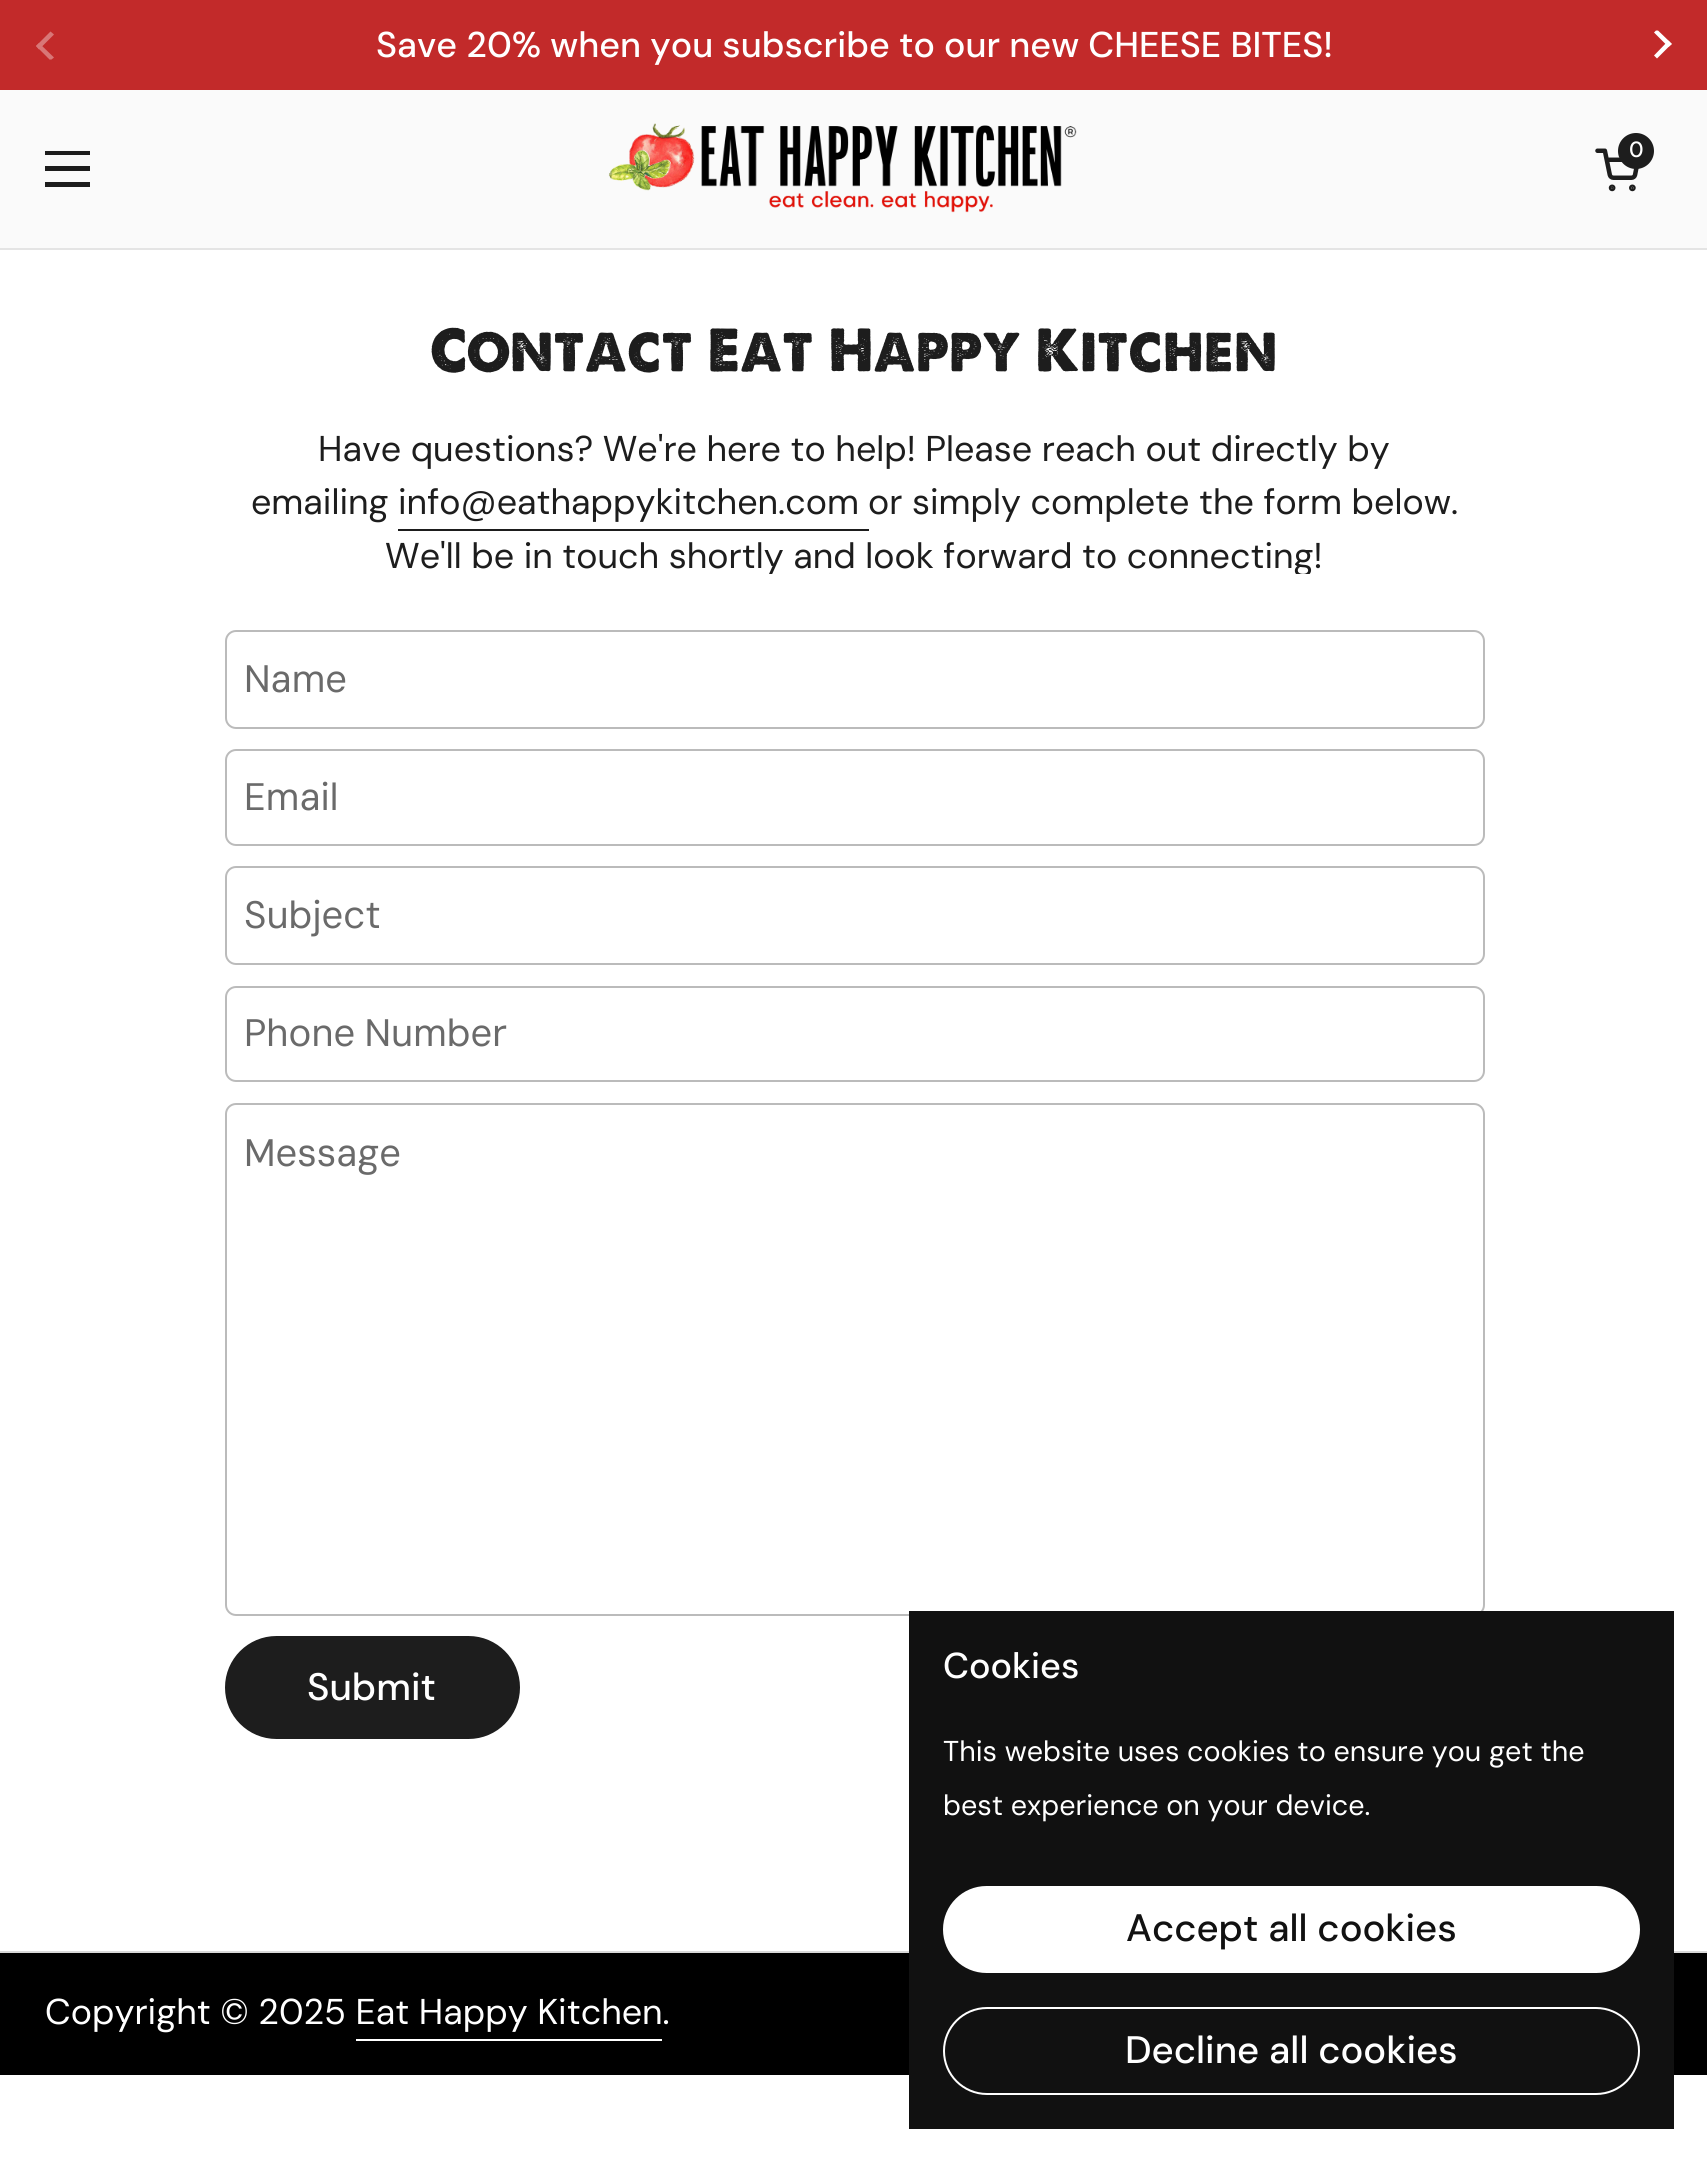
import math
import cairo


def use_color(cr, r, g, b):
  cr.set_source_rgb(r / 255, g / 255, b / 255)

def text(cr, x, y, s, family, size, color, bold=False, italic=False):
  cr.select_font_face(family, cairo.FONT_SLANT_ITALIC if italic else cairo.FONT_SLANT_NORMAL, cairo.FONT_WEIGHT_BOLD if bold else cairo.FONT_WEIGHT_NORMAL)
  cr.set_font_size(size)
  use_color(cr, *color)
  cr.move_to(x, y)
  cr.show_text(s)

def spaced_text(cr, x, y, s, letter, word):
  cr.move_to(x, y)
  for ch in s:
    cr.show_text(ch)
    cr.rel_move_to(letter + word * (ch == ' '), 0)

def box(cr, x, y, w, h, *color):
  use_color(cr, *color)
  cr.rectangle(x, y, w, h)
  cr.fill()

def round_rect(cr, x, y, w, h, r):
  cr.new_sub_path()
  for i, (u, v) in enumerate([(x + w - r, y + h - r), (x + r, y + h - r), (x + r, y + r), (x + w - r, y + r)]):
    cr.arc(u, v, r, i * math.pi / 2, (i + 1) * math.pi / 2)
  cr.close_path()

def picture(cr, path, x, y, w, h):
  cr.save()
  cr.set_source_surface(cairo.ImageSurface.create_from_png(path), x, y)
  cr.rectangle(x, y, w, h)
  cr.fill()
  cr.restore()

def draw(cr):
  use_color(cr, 255, 255, 255)
  cr.paint()
  box(cr, 0, 0, 1707, 90, 194, 42, 42)
  use_color(cr, 216, 119, 119)
  cr.new_path()
  cr.move_to(54, 34.5)
  cr.line_to(39, 49.5)
  cr.line_to(36, 46)
  cr.line_to(50.5, 31.5)
  cr.close_path()
  cr.fill()
  cr.new_path()
  cr.move_to(49.5, 59.5)
  cr.line_to(36, 46)
  cr.line_to(39, 43)
  cr.line_to(54, 57.5)
  cr.line_to(51.5, 59.5)
  cr.close_path()
  cr.fill()
  use_color(cr, 255, 255, 255)
  cr.new_path()
  cr.move_to(1654, 55.5)
  cr.line_to(1668.5, 40.5)
  cr.line_to(1671.5, 44)
  cr.line_to(1657, 58.5)
  cr.close_path()
  cr.fill()
  cr.new_path()
  cr.move_to(1672, 44)
  cr.line_to(1668.5, 47)
  cr.line_to(1654, 32.5)
  cr.line_to(1656, 30.5)
  cr.line_to(1658, 30.5)
  cr.close_path()
  cr.fill()
  box(cr, 0, 90, 1707, 158, 250, 250, 250)
  box(cr, 0, 248, 1707, 2, 228, 228, 228)
  box(cr, 45, 151, 45, 4, 29, 29, 29)
  box(cr, 45, 166, 45, 5, 29, 29, 29)
  box(cr, 45, 182, 45, 5, 29, 29, 29)
  picture(cr, "img_01.png", 608, 123, 469, 90)
  picture(cr, "img_02.png", 1595, 148, 44, 44)
  cr.arc(1636, 151, 18, 0, 2 * math.pi)
  cr.fill()
  box(cr, 398, 529, 471, 2, 29, 29, 29)
  round_rect(cr, 226, 631, 1258, 97, 10)
  use_color(cr, 187, 187, 187)
  cr.stroke()
  round_rect(cr, 226, 750, 1258, 95, 10)
  cr.stroke()
  round_rect(cr, 226, 867, 1258, 97, 10)
  cr.stroke()
  round_rect(cr, 226, 987, 1258, 94, 10)
  cr.stroke()
  round_rect(cr, 226, 1104, 1258, 511, 10)
  cr.stroke()
  use_color(cr, 29, 29, 29)
  round_rect(cr, 226, 1637, 293, 101, 50.5)
  cr.fill_preserve()
  cr.stroke()
  box(cr, 0, 1951, 1707, 2, 217, 217, 217)
  box(cr, 0, 1953, 1707, 122, 0, 0, 0)
  box(cr, 356, 2039, 306, 2, 255, 255, 255)
  box(cr, 909, 1611, 765, 518, 17, 17, 17)
  use_color(cr, 255, 255, 255)
  round_rect(cr, 944, 1887, 695, 85, 42.5)
  cr.fill_preserve()
  cr.stroke()
  round_rect(cr, 944, 2008, 695, 86, 43)
  cr.stroke()
  text(cr, 376, 57, "Save 20% when you subscribe to our new CHEESE BITES!", "DM Sans Medium", 35.85, (255, 255, 255))
  text(cr, 1629, 157, "0", "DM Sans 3 Medium", 22, (255, 255, 255))
  text(cr, 430, 371, "Contact Eat Happy Kitchen", "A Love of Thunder", 57.6, (29, 29, 29))
  text(cr, 318, 461, "Have questions? We're here to help! Please reach out directly by", "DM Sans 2", 35.85, (29, 29, 29))
  text(cr, 251, 514, "emailing info@eathappykitchen.com", "DM Sans 2", 35.85, (29, 29, 29))
  text(cr, 868, 514, "or simply complete the form below.", "DM Sans 2", 35.85, (29, 29, 29))
  cr.save()
  round_rect(cr, 45, 250, 1618, 324, 23)
  cr.clip()
  text(cr, 385, 568, "We'll be in touch shortly and look forward to connecting!", "DM Sans 2", 35.85, (29, 29, 29))
  cr.restore()
  text(cr, 244, 692, "Name", "DM Sans", 38.25, (106, 106, 106))
  text(cr, 244, 810, "Email", "DM Sans", 38.25, (106, 106, 106))
  text(cr, 244, 928, "Subject", "DM Sans", 38.25, (106, 106, 106))
  spaced_text(cr, 244, 1046, "Phone Number", 0, -1)
  text(cr, 244, 1166, "Message", "DM Sans", 38.25, (106, 106, 106))
  text(cr, 307, 1700, "Submit", "DM Sans 2 Medium", 38.25, (255, 255, 255))
  text(cr, 45, 2024, "Copyright © 2025 Eat Happy Kitchen.", "DM Sans 2", 35.85, (255, 255, 255))
  text(cr, 943, 1678, "Cookies", "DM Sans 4 Medium", 36, (255, 255, 255))
  text(cr, 943, 1761, "This website uses cookies to ensure you get the", "DM Sans 3", 28.7, (255, 255, 255))
  text(cr, 943, 1815, "best experience on your device.", "DM Sans 3", 28.7, (255, 255, 255))
  text(cr, 1126, 1941, "Accept all cookies", "DM Sans 2 Medium", 38.25, (17, 17, 17))
  text(cr, 1125, 2063, "Decline all cookies", "DM Sans 2 Medium", 38.25, (255, 255, 255))


surface = cairo.ImageSurface(cairo.FORMAT_RGB24, 1707, 2161)
cr = cairo.Context(surface)
options = cairo.FontOptions()
options.set_hint_metrics(cairo.HINT_METRICS_OFF)
options.set_hint_style(cairo.HINT_STYLE_NONE)
cr.set_font_options(options)
cr.set_miter_limit(4)
draw(cr)
surface.write_to_png("out.png")
